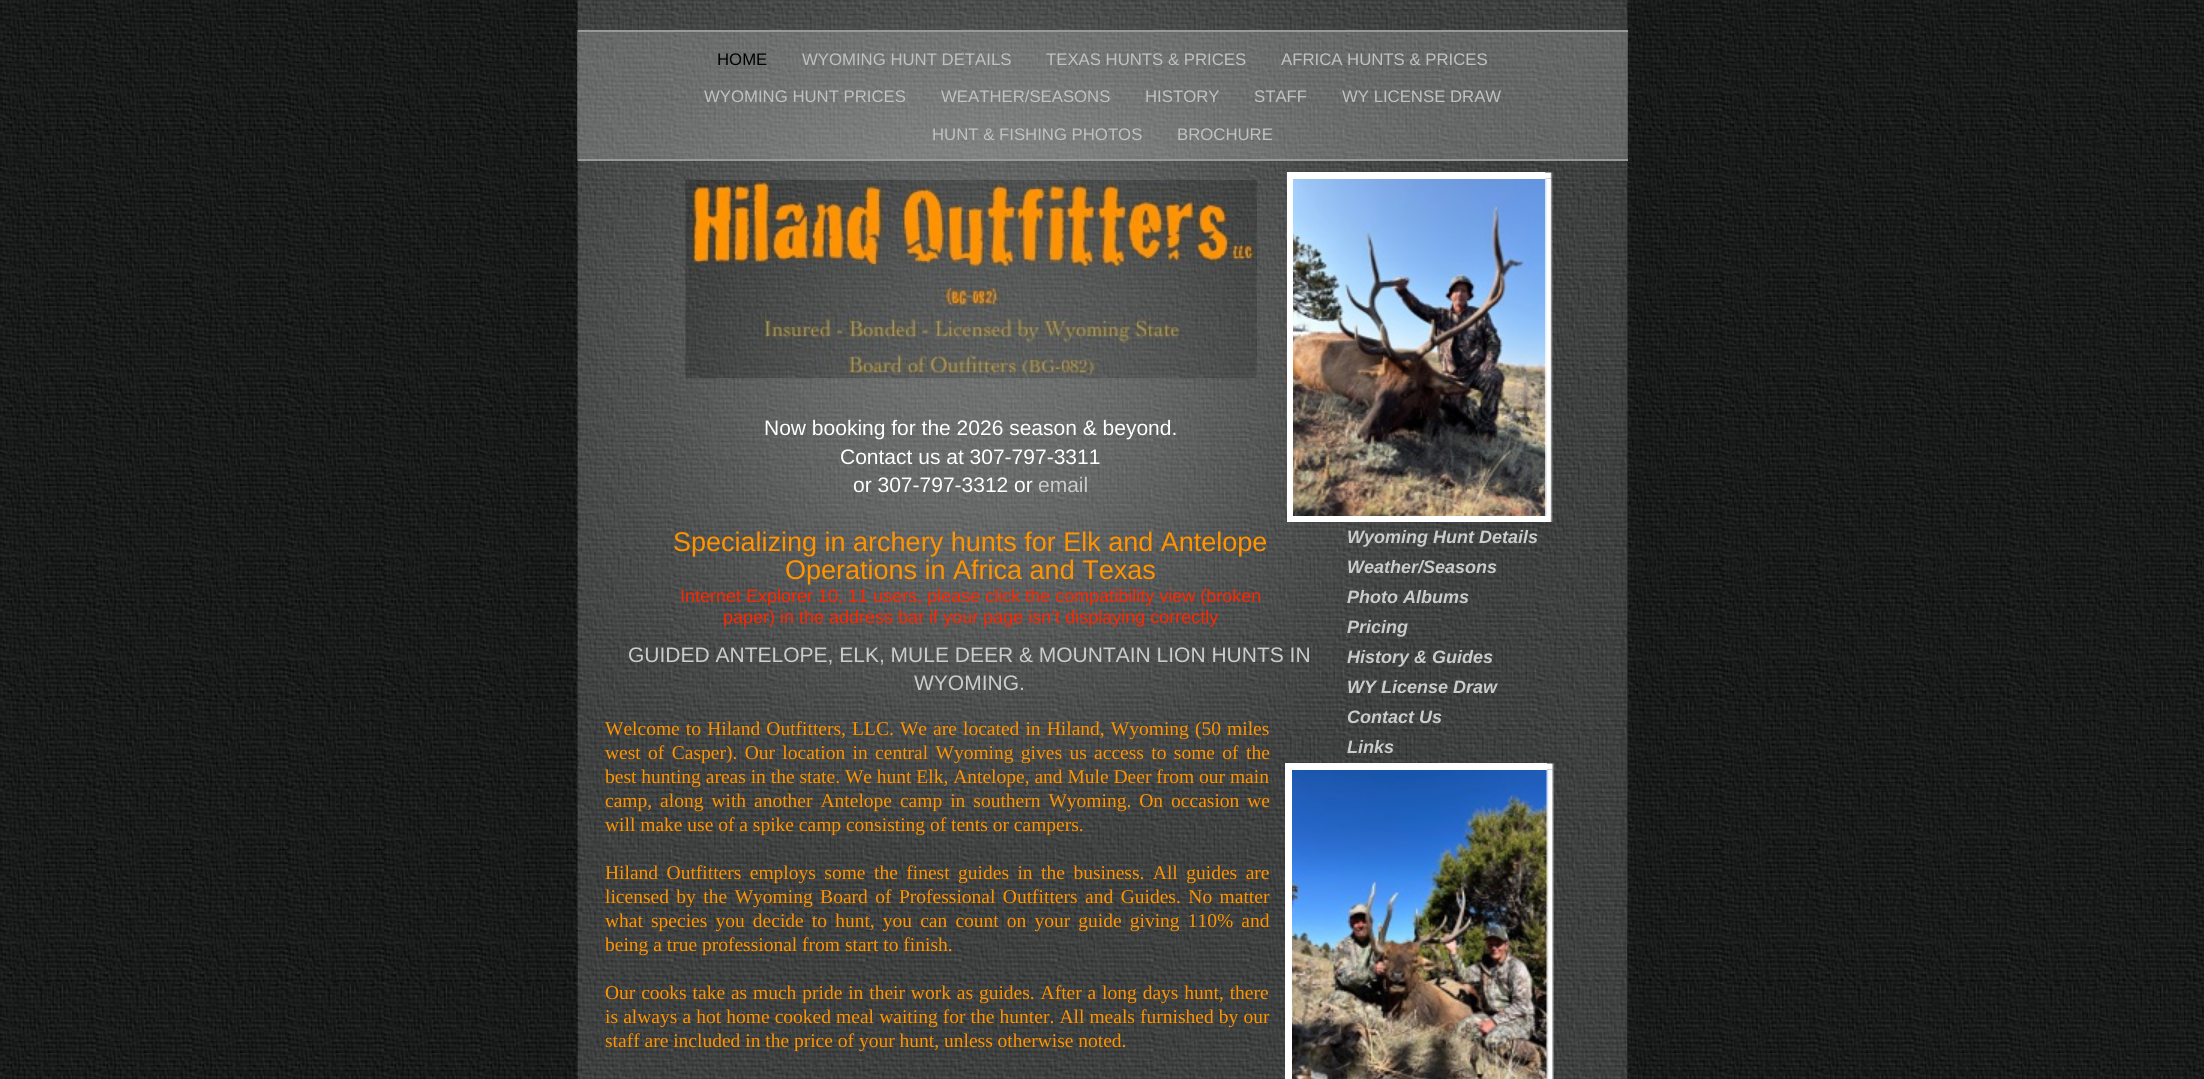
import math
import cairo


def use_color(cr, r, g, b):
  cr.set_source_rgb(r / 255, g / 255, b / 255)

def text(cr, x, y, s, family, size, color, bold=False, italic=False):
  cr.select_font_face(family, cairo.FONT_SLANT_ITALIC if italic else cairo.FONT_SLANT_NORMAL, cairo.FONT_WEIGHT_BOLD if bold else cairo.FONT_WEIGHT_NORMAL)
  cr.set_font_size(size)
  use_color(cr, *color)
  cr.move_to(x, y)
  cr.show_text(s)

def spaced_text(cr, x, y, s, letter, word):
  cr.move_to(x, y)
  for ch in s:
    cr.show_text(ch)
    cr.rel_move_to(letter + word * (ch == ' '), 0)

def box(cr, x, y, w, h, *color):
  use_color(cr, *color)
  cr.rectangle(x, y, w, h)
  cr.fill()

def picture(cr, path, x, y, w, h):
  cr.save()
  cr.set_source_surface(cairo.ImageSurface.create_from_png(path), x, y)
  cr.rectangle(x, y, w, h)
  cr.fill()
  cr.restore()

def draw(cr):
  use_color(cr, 255, 255, 255)
  cr.paint()
  picture(cr, "img_01.png", 0, 0, 2204, 1079)
  picture(cr, "img_02.png", 577, 0, 1051, 1079)
  picture(cr, "img_03.png", 577, 0, 1051, 930)
  cr.set_source_rgba(1, 1, 1, 0.2)
  cr.rectangle(577, 30, 1051, 131)
  cr.fill()
  box(cr, 578, 30, 1050, 2, 153, 153, 153)
  box(cr, 578, 159, 1050, 2, 153, 153, 153)
  picture(cr, "img_04.png", 685, 180, 572, 198)
  box(cr, 1287, 172, 6, 344, 255, 255, 255)
  picture(cr, "img_06.png", 1293, 178, 255, 338)
  box(cr, 1293, 172, 252, 7, 255, 255, 255)
  picture(cr, "img_05.png", 1545, 172, 8, 7)
  picture(cr, "img_07.png", 1545, 178, 8, 338)
  box(cr, 1287, 516, 258, 6, 255, 255, 255)
  picture(cr, "img_08.png", 1545, 516, 8, 6)
  box(cr, 1285, 763, 7, 316, 255, 255, 255)
  picture(cr, "img_10.png", 1292, 769, 258, 310)
  box(cr, 1292, 763, 255, 7, 255, 255, 255)
  picture(cr, "img_09.png", 1547, 763, 7, 7)
  picture(cr, "img_11.png", 1546, 769, 8, 310)
  text(cr, 717, 65, "HOME", "Liberation Sans", 16.75, (0, 0, 0))
  text(cr, 802, 65, "WYOMING HUNT DETAILS", "Liberation Sans", 16.75, (193, 193, 193))
  text(cr, 1046, 65, "TEXAS HUNTS & PRICES", "Liberation Sans", 16.75, (193, 193, 193))
  text(cr, 1281, 65, "AFRICA HUNTS & PRICES", "Liberation Sans", 16.75, (193, 193, 193))
  text(cr, 704, 102, "WYOMING HUNT PRICES", "Liberation Sans", 16.75, (193, 193, 193))
  text(cr, 941, 102, "WEATHER/SEASONS", "Liberation Sans", 16.75, (193, 193, 193))
  text(cr, 1145, 102, "HISTORY", "Liberation Sans", 16.75, (193, 193, 193))
  text(cr, 1254, 102, "STAFF", "Liberation Sans", 16.75, (193, 193, 193))
  text(cr, 1342, 102, "WY LICENSE DRAW", "Liberation Sans", 16.75, (193, 193, 193))
  text(cr, 932, 140, "HUNT & FISHING PHOTOS", "Liberation Sans", 16.75, (193, 193, 193))
  text(cr, 1177, 140, "BROCHURE", "Liberation Sans", 16.75, (193, 193, 193))
  text(cr, 764, 435, "Now booking for the 2026 season & beyond.", "Liberation Sans", 21, (255, 255, 255))
  text(cr, 840, 464, "Contact us at 307-797-3311", "Liberation Sans", 21, (255, 255, 255))
  text(cr, 853, 492, "or 307-797-3312 or", "Liberation Sans", 21, (255, 255, 255))
  text(cr, 1038, 492, "email", "Liberation Sans", 21, (203, 203, 203))
  text(cr, 673, 551, "Specializing in archery hunts for Elk and Antelope", "Liberation Sans", 27, (255, 147, 0))
  text(cr, 785, 579, "Operations in Africa and Texas", "Liberation Sans", 27, (255, 147, 0))
  text(cr, 680, 602, "Internet Explorer 10, 11 users, please click the compatibility view (broken", "Liberation Sans", 18, (255, 38, 0))
  text(cr, 723, 623, "paper) in the address bar if your page isn’t displaying correctly", "Liberation Sans", 18, (255, 38, 0))
  text(cr, 628, 662, "GUIDED ANTELOPE, ELK, MULE DEER & MOUNTAIN LION HUNTS IN", "Liberation Sans", 21, (203, 203, 203))
  text(cr, 914, 690, "WYOMING.", "Liberation Sans", 21, (203, 203, 203))
  text(cr, 1347, 543, "Wyoming Hunt Details", "Liberation Sans", 18, (203, 203, 203), bold=True, italic=True)
  text(cr, 1347, 573, "Weather/Seasons", "Liberation Sans", 18, (203, 203, 203), bold=True, italic=True)
  text(cr, 1347, 603, "Photo Albums", "Liberation Sans", 18, (203, 203, 203), bold=True, italic=True)
  text(cr, 1347, 633, "Pricing", "Liberation Sans", 18, (203, 203, 203), bold=True, italic=True)
  text(cr, 1347, 663, "History & Guides", "Liberation Sans", 18, (203, 203, 203), bold=True, italic=True)
  text(cr, 1347, 693, "WY License Draw", "Liberation Sans", 18, (203, 203, 203), bold=True, italic=True)
  text(cr, 1347, 723, "Contact Us", "Liberation Sans", 18, (203, 203, 203), bold=True, italic=True)
  text(cr, 1347, 753, "Links", "Liberation Sans", 18, (203, 203, 203), bold=True, italic=True)
  cr.select_font_face("Liberation Serif")
  cr.set_font_size(19.5)
  use_color(cr, 255, 147, 0)
  spaced_text(cr, 605, 735, "Welcome to Hiland Outfitters, LLC. We are located in Hiland, Wyoming (50 miles", 0, 1.25)
  spaced_text(cr, 605, 759, "west of Casper). Our location in central Wyoming gives us access to some of the", 0, 2.5)
  text(cr, 605, 783, "best hunting areas in the state. We hunt Elk, Antelope, and Mule Deer from our main", "Liberation Serif", 19.5, (255, 147, 0))
  spaced_text(cr, 605, 807, "camp, along with another Antelope camp in southern Wyoming. On occasion we", 0, 3.1)
  text(cr, 605, 831, "will make use of a spike camp consisting of tents or campers.", "Liberation Serif", 19.5, (255, 147, 0))
  spaced_text(cr, 605, 879, "Hiland Outfitters employs some the finest guides in the business. All guides are", 0, 3.6)
  spaced_text(cr, 605, 903, "licensed by the Wyoming Board of Professional Outfitters and Guides. No matter", 0, 2.6)
  spaced_text(cr, 605, 927, "what species you decide to hunt, you can count on your guide giving 110% and", 0, 3.25)
  text(cr, 605, 951, "being a true professional from start to finish.", "Liberation Serif", 19.5, (255, 147, 0))
  spaced_text(cr, 605, 999, "Our cooks take as much pride in their work as guides. After a long days hunt, there", 0, 1)
  spaced_text(cr, 605, 1023, "is always a hot home cooked meal waiting for the hunter. All meals furnished by our", 0, 0.25)
  text(cr, 605, 1047, "staff are included in the price of your hunt, unless otherwise noted.", "Liberation Serif", 19.5, (255, 147, 0))


surface = cairo.ImageSurface(cairo.FORMAT_RGB24, 2204, 1079)
cr = cairo.Context(surface)
options = cairo.FontOptions()
options.set_hint_metrics(cairo.HINT_METRICS_OFF)
options.set_hint_style(cairo.HINT_STYLE_NONE)
cr.set_font_options(options)
cr.set_miter_limit(4)
draw(cr)
surface.write_to_png("out.png")
